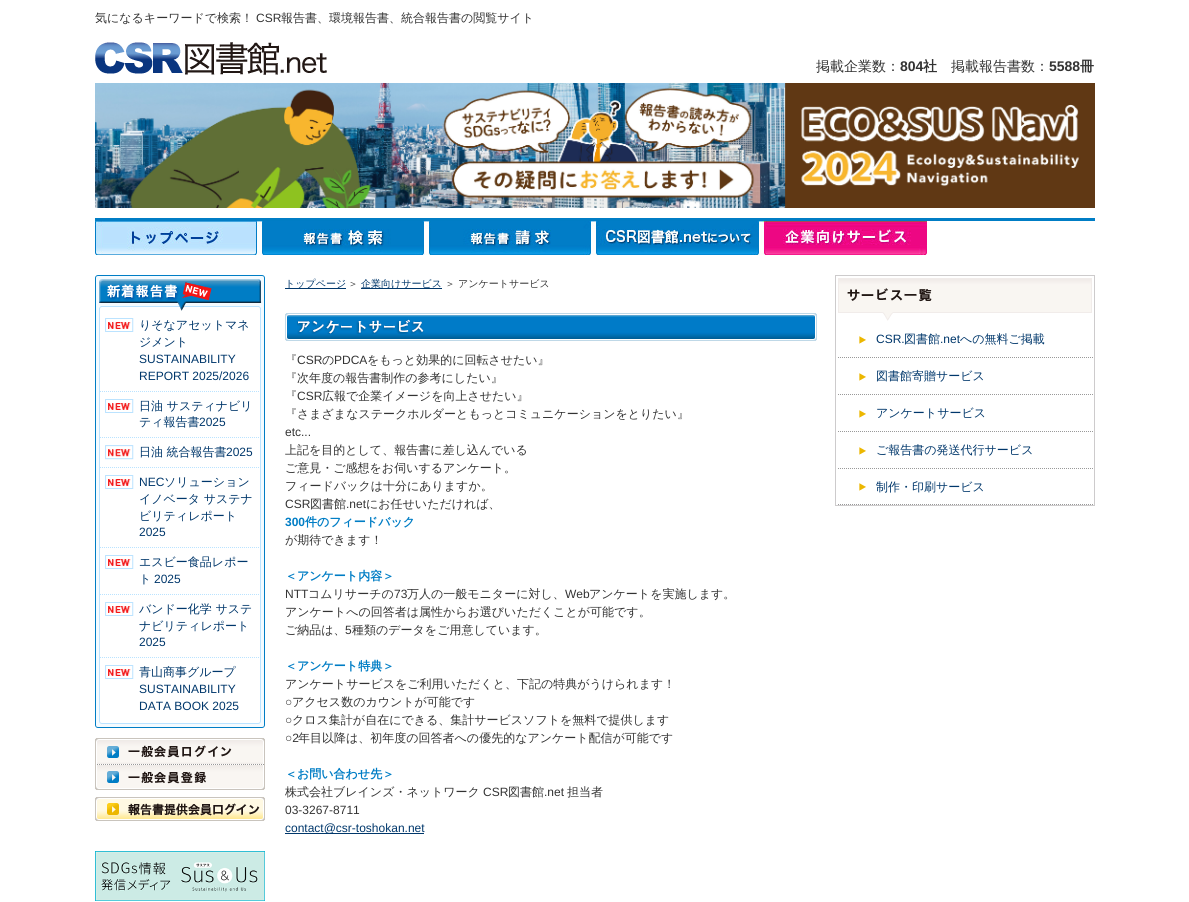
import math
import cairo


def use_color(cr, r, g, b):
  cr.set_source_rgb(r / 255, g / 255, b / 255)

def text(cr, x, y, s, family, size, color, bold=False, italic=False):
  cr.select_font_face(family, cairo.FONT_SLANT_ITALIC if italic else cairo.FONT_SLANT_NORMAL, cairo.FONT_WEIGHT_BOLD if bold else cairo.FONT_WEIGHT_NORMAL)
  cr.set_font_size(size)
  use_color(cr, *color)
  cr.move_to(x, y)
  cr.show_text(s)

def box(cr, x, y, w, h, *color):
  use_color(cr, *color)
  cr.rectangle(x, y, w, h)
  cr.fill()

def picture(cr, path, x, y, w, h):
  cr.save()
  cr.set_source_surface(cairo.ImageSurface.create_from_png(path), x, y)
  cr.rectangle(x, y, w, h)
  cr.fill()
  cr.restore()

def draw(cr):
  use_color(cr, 255, 255, 255)
  cr.paint()
  box(cr, 95, 218, 1000, 3, 0, 125, 197)
  picture(cr, "img_01.png", 95, 42, 232, 33)
  picture(cr, "img_02.png", 95, 83, 1000, 125)
  picture(cr, "img_03.png", 95, 221, 167, 34)
  picture(cr, "img_04.png", 262, 221, 167, 34)
  picture(cr, "img_05.png", 429, 221, 167, 34)
  picture(cr, "img_06.png", 596, 221, 168, 34)
  picture(cr, "img_07.png", 764, 221, 163, 34)
  picture(cr, "img_08.png", 95, 275, 170, 36)
  picture(cr, "img_09.png", 95, 311, 170, 410)
  picture(cr, "img_10.png", 105, 318, 29, 14)
  picture(cr, "img_10.png", 105, 399, 29, 14)
  cr.new_path()
  cr.move_to(100, 391.5)
  cr.line_to(260, 391.5)
  use_color(cr, 186, 227, 255)
  cr.set_line_width(1)
  cr.set_dash([1, 1])
  cr.stroke()
  picture(cr, "img_11.png", 105, 445, 29, 15)
  cr.new_path()
  cr.move_to(100, 437.5)
  cr.line_to(260, 437.5)
  cr.stroke()
  picture(cr, "img_10.png", 105, 475, 29, 14)
  cr.new_path()
  cr.move_to(100, 467.5)
  cr.line_to(260, 467.5)
  cr.stroke()
  picture(cr, "img_10.png", 105, 555, 29, 14)
  cr.new_path()
  cr.move_to(100, 547.5)
  cr.line_to(260, 547.5)
  cr.stroke()
  picture(cr, "img_10.png", 105, 602, 29, 14)
  cr.new_path()
  cr.move_to(100, 594.5)
  cr.line_to(260, 594.5)
  cr.stroke()
  picture(cr, "img_10.png", 105, 665, 29, 14)
  cr.new_path()
  cr.move_to(100, 657.5)
  cr.line_to(260, 657.5)
  cr.stroke()
  picture(cr, "img_12.png", 95, 721, 170, 7)
  picture(cr, "img_13.png", 95, 738, 170, 26)
  picture(cr, "img_14.png", 95, 764, 170, 26)
  picture(cr, "img_15.png", 95, 797, 170, 24)
  picture(cr, "img_16.png", 95, 851, 170, 50)
  box(cr, 285, 288, 61, 1, 0, 55, 107)
  box(cr, 361, 288, 81, 1, 0, 55, 107)
  picture(cr, "img_17.png", 285, 313, 532, 28)
  box(cr, 285, 833, 139, 1, 0, 55, 107)
  picture(cr, "img_18.png", 835, 275, 260, 46)
  box(cr, 1094, 321, 1, 185, 205, 203, 204)
  box(cr, 835, 505, 260, 1, 205, 203, 204)
  box(cr, 835, 321, 1, 185, 205, 203, 204)
  picture(cr, "img_19.png", 838, 336, 255, 22)
  picture(cr, "img_19.png", 838, 373, 255, 22)
  picture(cr, "img_19.png", 838, 410, 255, 22)
  picture(cr, "img_19.png", 838, 447, 255, 22)
  picture(cr, "img_19.png", 838, 483, 255, 22)
  text(cr, 95, 22, "気になるキーワードで検索！", "WenQuanYi Zen Hei Medium", 12, (51, 51, 51))
  text(cr, 256, 22, "CSR", "Liberation Sans", 12, (51, 51, 51))
  text(cr, 281, 22, "報告書、環境報告書、統合報告書の閲覧サイト", "WenQuanYi Zen Hei Medium", 12, (51, 51, 51))
  text(cr, 816, 71, "掲載企業数：", "WenQuanYi Zen Hei Medium", 14, (51, 51, 51))
  text(cr, 900, 71, "804", "Liberation Sans", 14, (51, 51, 51), bold=True)
  text(cr, 923, 71, "社", "WenQuanYi Zen Hei", 14, (51, 51, 51), bold=True)
  text(cr, 951, 71, "掲載報告書数：", "WenQuanYi Zen Hei Medium", 14, (51, 51, 51))
  text(cr, 1049, 71, "5588", "Liberation Sans", 14, (51, 51, 51), bold=True)
  text(cr, 1080, 71, "冊", "WenQuanYi Zen Hei", 14, (51, 51, 51), bold=True)
  text(cr, 139, 329, "りそなアセットマネ", "WenQuanYi Zen Hei Medium", 12, (0, 55, 107))
  text(cr, 139, 346, "ジメント", "WenQuanYi Zen Hei Medium", 12, (0, 55, 107))
  text(cr, 139, 363, "SUSTAINABILITY", "Liberation Sans", 12, (0, 55, 107))
  text(cr, 139, 380, "REPORT 2025/2026", "Liberation Sans", 12, (0, 55, 107))
  text(cr, 139, 410, "日油 サスティナビリ", "WenQuanYi Zen Hei Medium", 12, (0, 55, 107))
  text(cr, 139, 426, "ティ報告書", "WenQuanYi Zen Hei Medium", 12, (0, 55, 107))
  text(cr, 199, 426, "2025", "Liberation Sans", 12, (0, 55, 107))
  text(cr, 139, 456, "日油 統合報告書", "WenQuanYi Zen Hei Medium", 12, (0, 55, 107))
  text(cr, 226, 456, "2025", "Liberation Sans", 12, (0, 55, 107))
  text(cr, 139, 486, "NEC", "Liberation Sans", 12, (0, 55, 107))
  text(cr, 164, 486, "ソリューション", "WenQuanYi Zen Hei Medium", 12, (0, 55, 107))
  text(cr, 139, 503, "イノベータ サステナ", "WenQuanYi Zen Hei Medium", 12, (0, 55, 107))
  text(cr, 139, 520, "ビリティレポート", "WenQuanYi Zen Hei Medium", 12, (0, 55, 107))
  text(cr, 139, 536, "2025", "Liberation Sans", 12, (0, 55, 107))
  text(cr, 139, 566, "エスビー食品レポー", "WenQuanYi Zen Hei Medium", 12, (0, 55, 107))
  text(cr, 139, 583, "ト", "WenQuanYi Zen Hei Medium", 12, (0, 55, 107))
  text(cr, 154, 583, "2025", "Liberation Sans", 12, (0, 55, 107))
  text(cr, 139, 613, "バンドー化学 サステ", "WenQuanYi Zen Hei Medium", 12, (0, 55, 107))
  text(cr, 139, 630, "ナビリティレポート", "WenQuanYi Zen Hei Medium", 12, (0, 55, 107))
  text(cr, 139, 646, "2025", "Liberation Sans", 12, (0, 55, 107))
  text(cr, 139, 676, "青山商事グループ", "WenQuanYi Zen Hei Medium", 12, (0, 55, 107))
  text(cr, 139, 693, "SUSTAINABILITY", "Liberation Sans", 12, (0, 55, 107))
  text(cr, 139, 710, "DATA BOOK 2025", "Liberation Sans", 12, (0, 55, 107))
  text(cr, 285, 287, "トップページ", "WenQuanYi Zen Hei Medium", 10, (0, 55, 107))
  text(cr, 348, 287, "＞", "WenQuanYi Zen Hei Medium", 10, (51, 51, 51))
  text(cr, 361, 287, "企業向けサービス", "WenQuanYi Zen Hei Medium", 10, (0, 55, 107))
  text(cr, 445, 287, "＞ アンケートサービス", "WenQuanYi Zen Hei Medium", 10, (51, 51, 51))
  text(cr, 285, 364, "『", "WenQuanYi Zen Hei Medium", 12, (51, 51, 51))
  text(cr, 297, 364, "CSR", "Liberation Sans", 12, (51, 51, 51))
  text(cr, 322, 364, "の", "WenQuanYi Zen Hei Medium", 12, (51, 51, 51))
  text(cr, 334, 364, "PDCA", "Liberation Sans", 12, (51, 51, 51))
  text(cr, 367, 364, "をもっと効果的に回転させたい』", "WenQuanYi Zen Hei Medium", 12, (51, 51, 51))
  text(cr, 285, 382, "『次年度の報告書制作の参考にしたい』", "WenQuanYi Zen Hei Medium", 12, (51, 51, 51))
  text(cr, 285, 400, "『", "WenQuanYi Zen Hei Medium", 12, (51, 51, 51))
  text(cr, 297, 400, "CSR", "Liberation Sans", 12, (51, 51, 51))
  text(cr, 322, 400, "広報で企業イメージを向上させたい』", "WenQuanYi Zen Hei Medium", 12, (51, 51, 51))
  text(cr, 285, 418, "『さまざまなステークホルダーともっとコミュニケーションをとりたい』", "WenQuanYi Zen Hei Medium", 12, (51, 51, 51))
  text(cr, 285, 436, "etc...", "Liberation Sans", 12, (51, 51, 51))
  text(cr, 285, 454, "上記を目的として、報告書に差し込んでいる", "WenQuanYi Zen Hei Medium", 12, (51, 51, 51))
  text(cr, 285, 472, "ご意見・ご感想をお伺いするアンケート。", "WenQuanYi Zen Hei Medium", 12, (51, 51, 51))
  text(cr, 285, 490, "フィードバックは十分にありますか。", "WenQuanYi Zen Hei Medium", 12, (51, 51, 51))
  text(cr, 285, 508, "CSR", "Liberation Sans", 12, (51, 51, 51))
  text(cr, 310, 508, "図書館", "WenQuanYi Zen Hei Medium", 12, (51, 51, 51))
  text(cr, 346, 508, ".net", "Liberation Sans", 12, (51, 51, 51))
  text(cr, 366, 508, "にお任せいただければ、", "WenQuanYi Zen Hei Medium", 12, (51, 51, 51))
  text(cr, 285, 526, "300", "Liberation Sans", 12, (0, 125, 197), bold=True)
  text(cr, 305, 526, "件のフィードバック", "WenQuanYi Zen Hei", 12, (0, 125, 197), bold=True)
  text(cr, 285, 544, "が期待できます！", "WenQuanYi Zen Hei Medium", 12, (51, 51, 51))
  text(cr, 285, 580, "＜アンケート内容＞", "WenQuanYi Zen Hei", 12, (0, 125, 197), bold=True)
  text(cr, 285, 598, "NTT", "Liberation Sans", 12, (51, 51, 51))
  text(cr, 308, 598, "コムリサーチの", "WenQuanYi Zen Hei Medium", 12, (51, 51, 51))
  text(cr, 394, 598, "73", "Liberation Sans", 12, (51, 51, 51))
  text(cr, 407, 598, "万人の一般モニターに対し、", "WenQuanYi Zen Hei Medium", 12, (51, 51, 51))
  text(cr, 565, 598, "Web", "Liberation Sans", 12, (51, 51, 51))
  text(cr, 589, 598, "アンケートを実施します。", "WenQuanYi Zen Hei Medium", 12, (51, 51, 51))
  text(cr, 285, 616, "アンケートへの回答者は属性からお選びいただくことが可能です。", "WenQuanYi Zen Hei Medium", 12, (51, 51, 51))
  text(cr, 285, 634, "ご納品は、", "WenQuanYi Zen Hei Medium", 12, (51, 51, 51))
  text(cr, 345, 634, "5", "Liberation Sans", 12, (51, 51, 51))
  text(cr, 352, 634, "種類のデータをご用意しています。", "WenQuanYi Zen Hei Medium", 12, (51, 51, 51))
  text(cr, 285, 670, "＜アンケート特典＞", "WenQuanYi Zen Hei", 12, (0, 125, 197), bold=True)
  text(cr, 285, 688, "アンケートサービスをご利用いただくと、下記の特典がうけられます！", "WenQuanYi Zen Hei Medium", 12, (51, 51, 51))
  text(cr, 285, 706, "○", "Liberation Sans", 12, (51, 51, 51))
  text(cr, 292, 706, "アクセス数のカウントが可能です", "WenQuanYi Zen Hei Medium", 12, (51, 51, 51))
  text(cr, 285, 724, "○", "Liberation Sans", 12, (51, 51, 51))
  text(cr, 292, 724, "クロス集計が自在にできる、集計サービスソフトを無料で提供します", "WenQuanYi Zen Hei Medium", 12, (51, 51, 51))
  text(cr, 285, 742, "○2", "Liberation Sans", 12, (51, 51, 51))
  text(cr, 298, 742, "年目以降は、初年度の回答者への優先的なアンケート配信が可能です", "WenQuanYi Zen Hei Medium", 12, (51, 51, 51))
  text(cr, 285, 778, "＜お問い合わせ先＞", "WenQuanYi Zen Hei", 12, (0, 125, 197), bold=True)
  text(cr, 285, 796, "株式会社ブレインズ・ネットワーク", "WenQuanYi Zen Hei Medium", 12, (51, 51, 51))
  text(cr, 483, 796, "CSR", "Liberation Sans", 12, (51, 51, 51))
  text(cr, 508, 796, "図書館", "WenQuanYi Zen Hei Medium", 12, (51, 51, 51))
  text(cr, 544, 796, ".net", "Liberation Sans", 12, (51, 51, 51))
  text(cr, 567, 796, "担当者", "WenQuanYi Zen Hei Medium", 12, (51, 51, 51))
  text(cr, 285, 814, "03-3267-8711", "Liberation Sans", 12, (51, 51, 51))
  text(cr, 285, 832, "contact@csr-toshokan.net", "Liberation Sans", 12, (0, 55, 107))
  text(cr, 876, 343, "CSR.", "Liberation Sans", 12, (0, 55, 107))
  text(cr, 904, 343, "図書館", "WenQuanYi Zen Hei Medium", 12, (0, 55, 107))
  text(cr, 940, 343, ".net", "Liberation Sans", 12, (0, 55, 107))
  text(cr, 960, 343, "への無料ご掲載", "WenQuanYi Zen Hei Medium", 12, (0, 55, 107))
  text(cr, 876, 380, "図書館寄贈サービス", "WenQuanYi Zen Hei Medium", 12, (0, 55, 107))
  text(cr, 876, 417, "アンケートサービス", "WenQuanYi Zen Hei Medium", 12, (0, 55, 107))
  text(cr, 876, 454, "ご報告書の発送代行サービス", "WenQuanYi Zen Hei Medium", 12, (0, 55, 107))
  text(cr, 876, 491, "制作・印刷サービス", "WenQuanYi Zen Hei Medium", 12, (0, 55, 107))


surface = cairo.ImageSurface(cairo.FORMAT_RGB24, 1189, 902)
cr = cairo.Context(surface)
options = cairo.FontOptions()
options.set_hint_metrics(cairo.HINT_METRICS_OFF)
options.set_hint_style(cairo.HINT_STYLE_NONE)
cr.set_font_options(options)
cr.set_miter_limit(4)
draw(cr)
surface.write_to_png("out.png")
